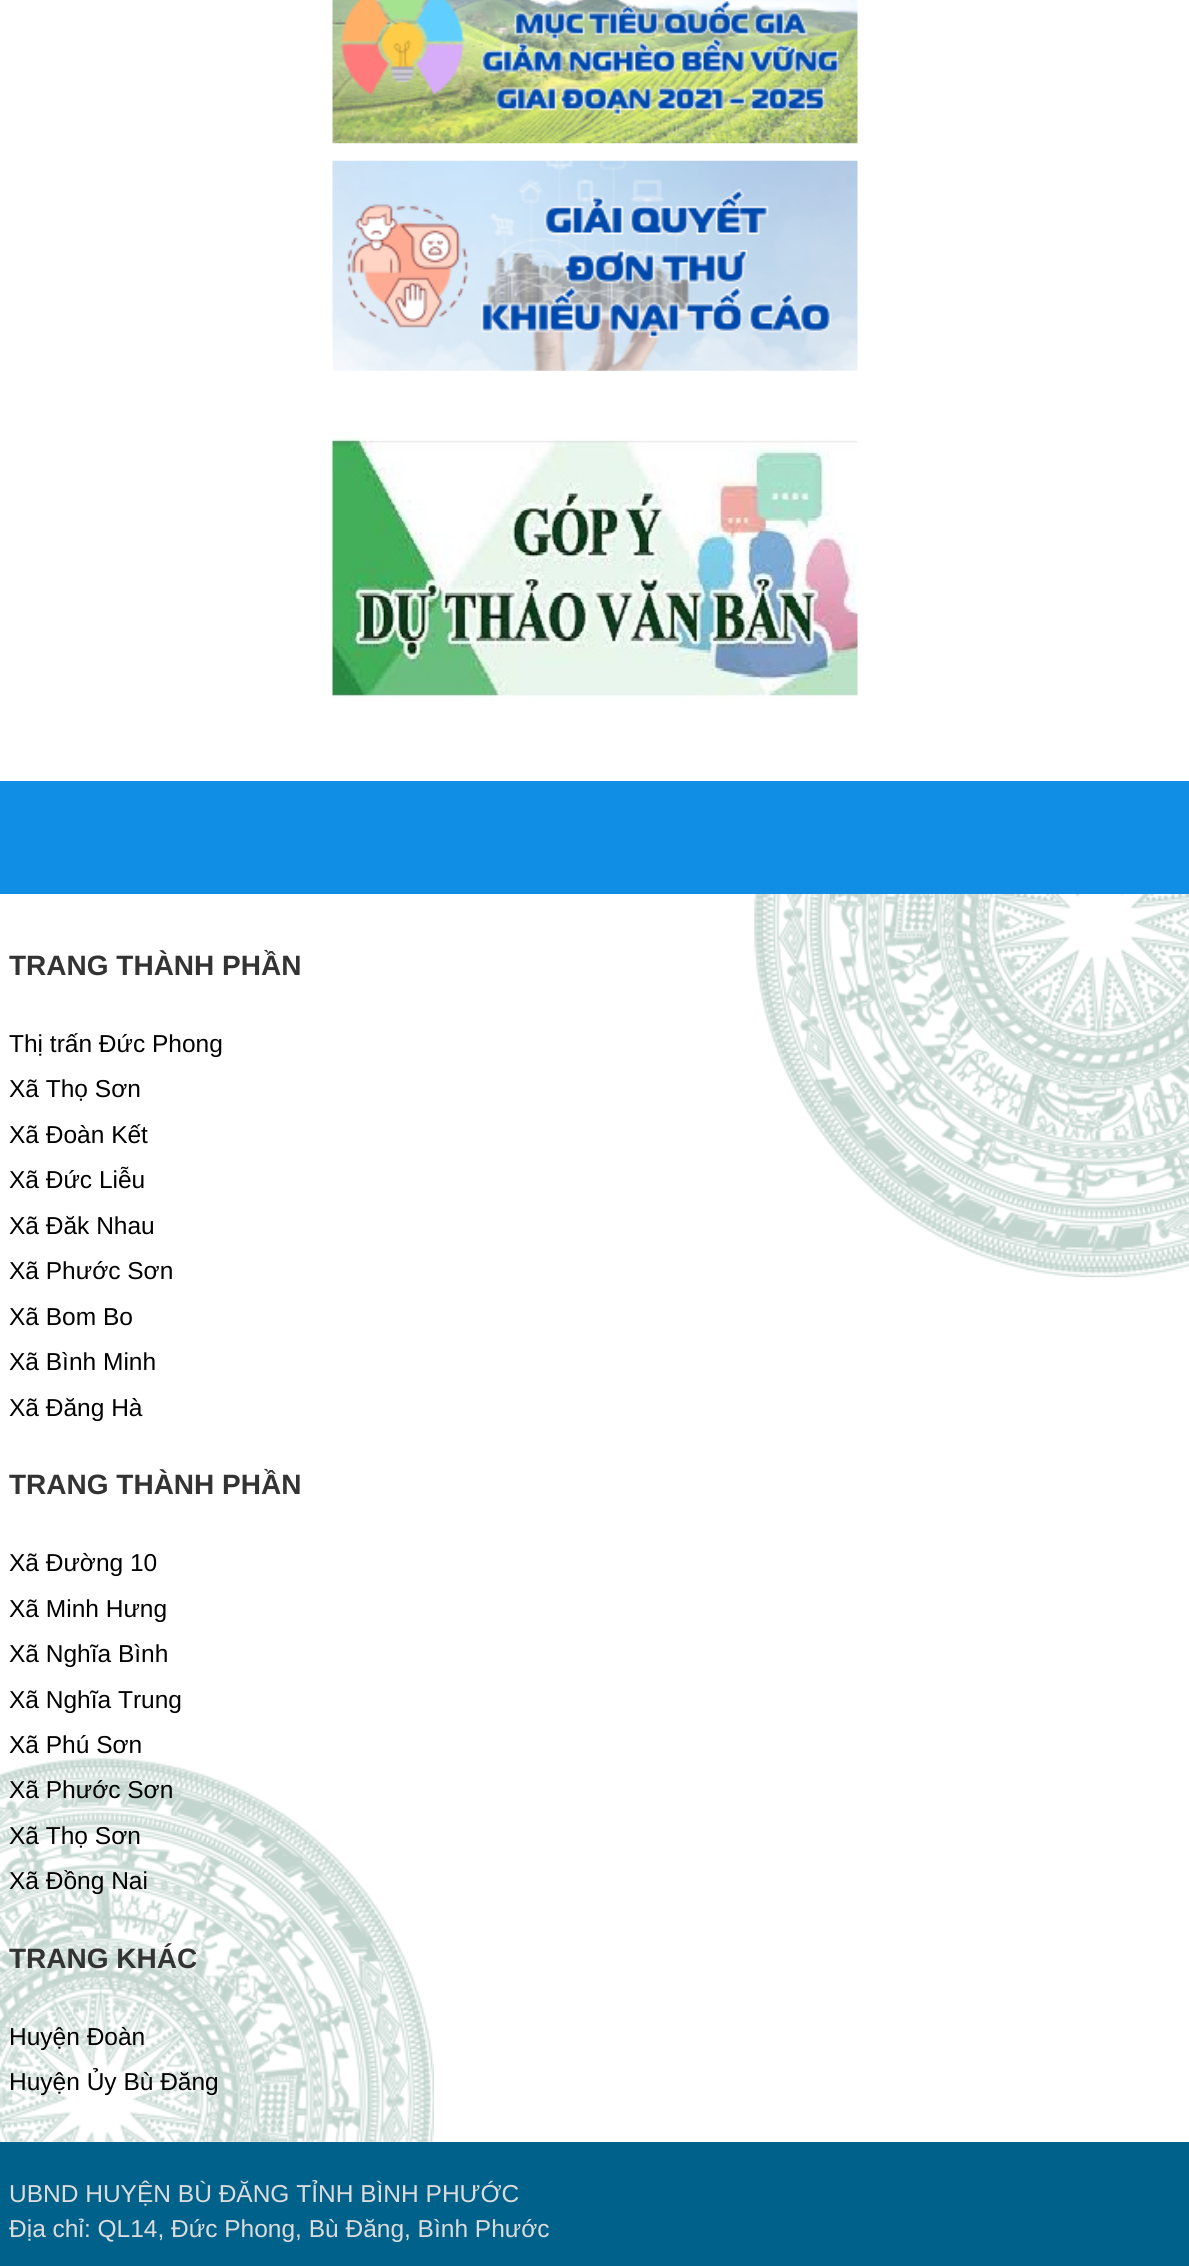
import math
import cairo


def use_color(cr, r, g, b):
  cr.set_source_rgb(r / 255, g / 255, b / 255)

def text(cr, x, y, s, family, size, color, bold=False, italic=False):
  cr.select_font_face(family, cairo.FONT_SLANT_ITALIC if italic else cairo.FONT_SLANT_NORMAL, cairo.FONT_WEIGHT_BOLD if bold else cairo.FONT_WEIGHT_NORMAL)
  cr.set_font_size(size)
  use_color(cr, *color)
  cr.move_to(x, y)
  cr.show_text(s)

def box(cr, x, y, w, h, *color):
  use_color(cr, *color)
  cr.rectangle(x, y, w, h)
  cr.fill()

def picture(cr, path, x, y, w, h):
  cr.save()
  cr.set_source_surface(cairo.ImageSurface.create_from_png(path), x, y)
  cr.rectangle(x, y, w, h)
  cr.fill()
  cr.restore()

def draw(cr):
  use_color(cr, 16, 141, 229)
  cr.paint()
  box(cr, 0, 0, 1189, 781, 255, 255, 255)
  picture(cr, "img_01.png", 332, 0, 526, 144)
  picture(cr, "img_02.png", 332, 160, 526, 211)
  picture(cr, "img_03.png", 332, 438, 526, 263)
  box(cr, 0, 894, 1189, 1248, 255, 255, 255)
  picture(cr, "img_04.png", 0, 894, 1189, 1248)
  box(cr, 0, 2142, 1189, 124, 0, 97, 139)
  text(cr, 9, 975, "TRANG THÀNH PHẦN", "Liberation Sans", 28, (51, 51, 51), bold=True)
  text(cr, 9, 1052, "Thị trấn Đức Phong", "Liberation Sans", 24.5, (0, 0, 0))
  text(cr, 9, 1097, "Xã Thọ Sơn", "Liberation Sans", 24.5, (0, 0, 0))
  text(cr, 9, 1143, "Xã Đoàn Kết", "Liberation Sans", 24.5, (0, 0, 0))
  text(cr, 9, 1188, "Xã Đức Liễu", "Liberation Sans", 24.5, (0, 0, 0))
  text(cr, 9, 1234, "Xã Đăk Nhau", "Liberation Sans", 24.5, (0, 0, 0))
  text(cr, 9, 1279, "Xã Phước Sơn", "Liberation Sans", 24.5, (0, 0, 0))
  text(cr, 9, 1325, "Xã Bom Bo", "Liberation Sans", 24.5, (0, 0, 0))
  text(cr, 9, 1370, "Xã Bình Minh", "Liberation Sans", 24.5, (0, 0, 0))
  text(cr, 9, 1416, "Xã Đăng Hà", "Liberation Sans", 24.5, (0, 0, 0))
  text(cr, 9, 1494, "TRANG THÀNH PHẦN", "Liberation Sans", 28, (51, 51, 51), bold=True)
  text(cr, 9, 1571, "Xã Đường 10", "Liberation Sans", 24.5, (0, 0, 0))
  text(cr, 9, 1617, "Xã Minh Hưng", "Liberation Sans", 24.5, (0, 0, 0))
  text(cr, 9, 1662, "Xã Nghĩa Bình", "Liberation Sans", 24.5, (0, 0, 0))
  text(cr, 9, 1708, "Xã Nghĩa Trung", "Liberation Sans", 24.5, (0, 0, 0))
  text(cr, 9, 1753, "Xã Phú Sơn", "Liberation Sans", 24.5, (0, 0, 0))
  text(cr, 9, 1798, "Xã Phước Sơn", "Liberation Sans", 24.5, (0, 0, 0))
  text(cr, 9, 1844, "Xã Thọ Sơn", "Liberation Sans", 24.5, (0, 0, 0))
  text(cr, 9, 1889, "Xã Đồng Nai", "Liberation Sans", 24.5, (0, 0, 0))
  text(cr, 9, 1968, "TRANG KHÁC", "Liberation Sans", 28, (51, 51, 51), bold=True)
  text(cr, 9, 2045, "Huyện Đoàn", "Liberation Sans", 24.5, (0, 0, 0))
  text(cr, 9, 2090, "Huyện Ủy Bù Đăng", "Liberation Sans", 24.5, (0, 0, 0))
  text(cr, 9, 2202, "UBND HUYỆN BÙ ĐĂNG TỈNH BÌNH PHƯỚC", "Liberation Sans", 24.5, (220, 220, 220))
  text(cr, 9, 2237, "Địa chỉ: QL14, Đức Phong, Bù Đăng, Bình Phước", "Liberation Sans", 24.5, (220, 220, 220))


surface = cairo.ImageSurface(cairo.FORMAT_RGB24, 1189, 2266)
cr = cairo.Context(surface)
options = cairo.FontOptions()
options.set_hint_metrics(cairo.HINT_METRICS_OFF)
options.set_hint_style(cairo.HINT_STYLE_NONE)
cr.set_font_options(options)
cr.set_miter_limit(4)
draw(cr)
surface.write_to_png("out.png")
